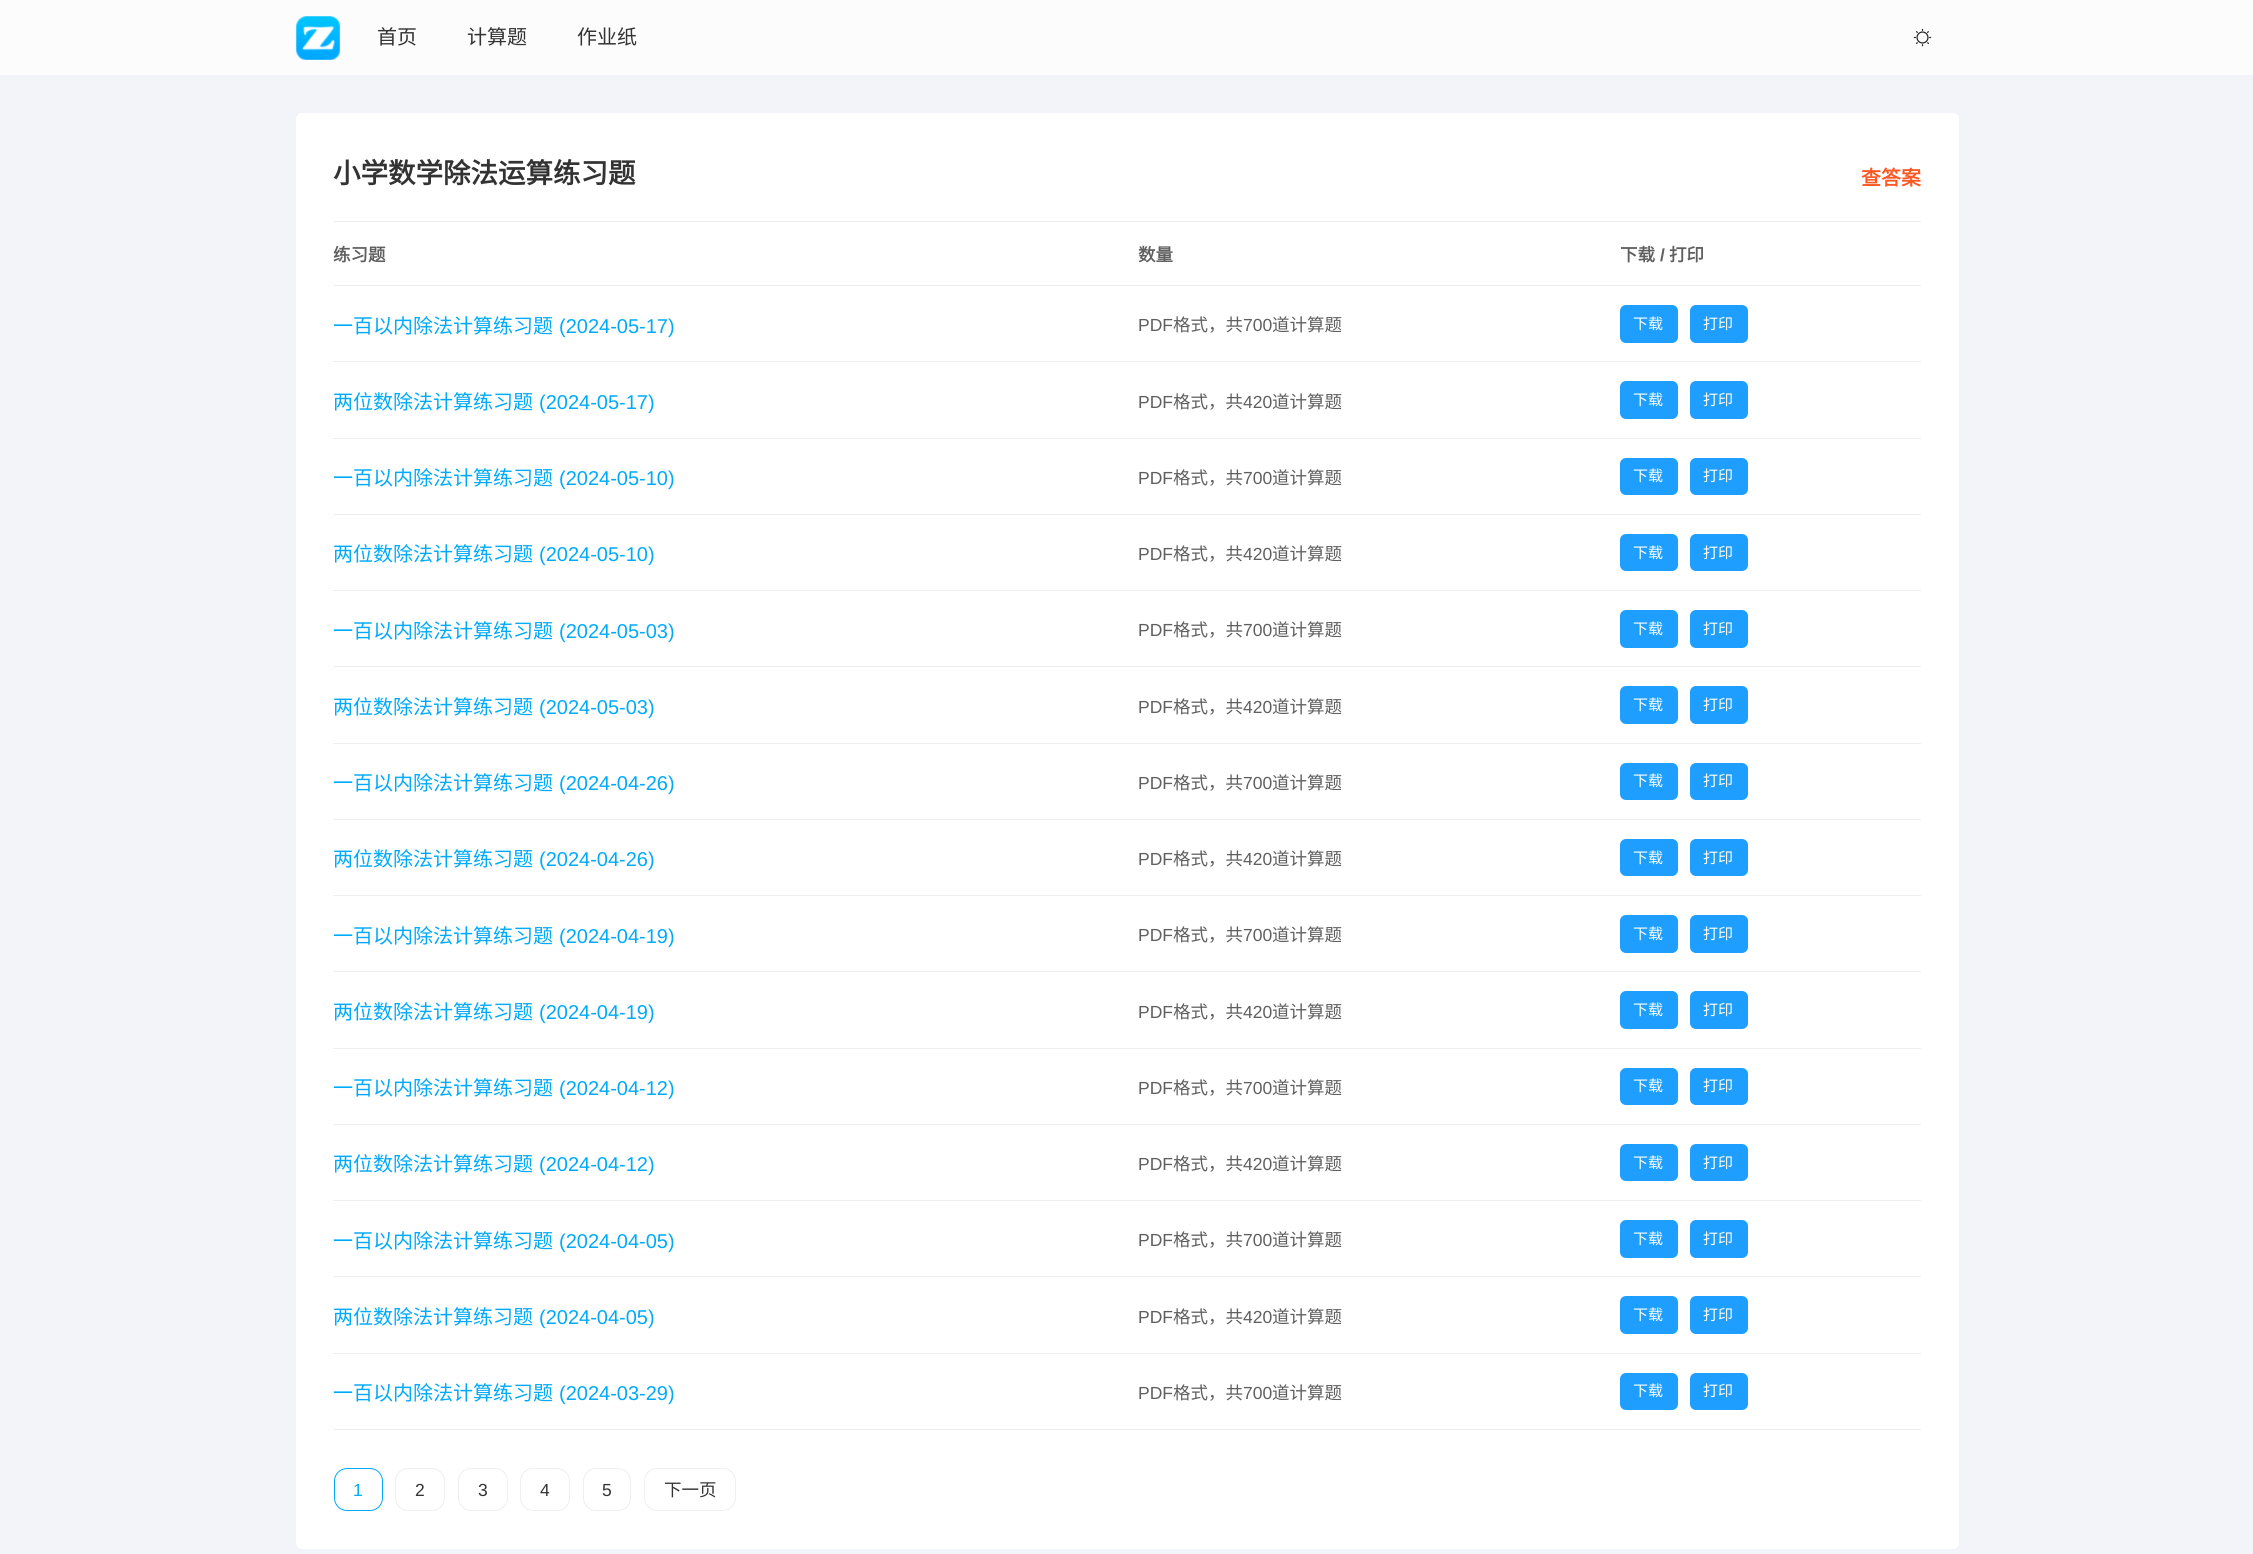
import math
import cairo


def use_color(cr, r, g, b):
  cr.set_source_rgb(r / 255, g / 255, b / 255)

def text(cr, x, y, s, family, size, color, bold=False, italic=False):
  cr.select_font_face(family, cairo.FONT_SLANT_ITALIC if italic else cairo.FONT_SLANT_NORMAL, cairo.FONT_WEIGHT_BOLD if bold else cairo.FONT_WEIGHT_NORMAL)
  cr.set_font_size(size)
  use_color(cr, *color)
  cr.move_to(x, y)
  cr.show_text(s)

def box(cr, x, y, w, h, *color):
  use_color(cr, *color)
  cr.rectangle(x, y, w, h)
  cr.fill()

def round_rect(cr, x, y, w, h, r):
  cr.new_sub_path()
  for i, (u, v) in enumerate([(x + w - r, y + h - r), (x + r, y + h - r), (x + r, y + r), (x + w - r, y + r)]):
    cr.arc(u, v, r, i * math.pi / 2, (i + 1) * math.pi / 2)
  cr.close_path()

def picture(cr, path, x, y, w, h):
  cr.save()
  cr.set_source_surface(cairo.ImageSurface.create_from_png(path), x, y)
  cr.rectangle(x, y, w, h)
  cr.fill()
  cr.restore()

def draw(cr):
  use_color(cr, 243, 244, 249)
  cr.paint()
  box(cr, 0, 0, 2253, 75, 252, 252, 252)
  picture(cr, "img_01.png", 296, 16, 44, 44)
  picture(cr, "img_02.png", 1913, 28, 19, 19)
  use_color(cr, 255, 255, 255)
  round_rect(cr, 296, 113, 1663, 1436, 6)
  cr.fill()
  box(cr, 334, 221, 1587, 1, 238, 238, 238)
  box(cr, 333, 285, 1588, 1, 238, 238, 238)
  box(cr, 333, 361, 1588, 1, 238, 238, 238)
  use_color(cr, 30, 159, 255)
  round_rect(cr, 1620, 305, 58, 38, 6)
  cr.fill()
  round_rect(cr, 1690, 305, 58, 38, 6)
  cr.fill()
  box(cr, 333, 438, 1588, 1, 238, 238, 238)
  use_color(cr, 30, 159, 255)
  round_rect(cr, 1620, 381, 58, 38, 6)
  cr.fill()
  round_rect(cr, 1690, 381, 58, 38, 6)
  cr.fill()
  box(cr, 333, 514, 1588, 1, 238, 238, 238)
  use_color(cr, 30, 159, 255)
  round_rect(cr, 1620, 458, 58, 37, 6)
  cr.fill()
  round_rect(cr, 1690, 458, 58, 37, 6)
  cr.fill()
  box(cr, 333, 590, 1588, 1, 238, 238, 238)
  use_color(cr, 30, 159, 255)
  round_rect(cr, 1620, 534, 58, 37, 6)
  cr.fill()
  round_rect(cr, 1690, 534, 58, 37, 6)
  cr.fill()
  box(cr, 333, 666, 1588, 1, 238, 238, 238)
  use_color(cr, 30, 159, 255)
  round_rect(cr, 1620, 610, 58, 38, 6)
  cr.fill()
  round_rect(cr, 1690, 610, 58, 38, 6)
  cr.fill()
  box(cr, 333, 743, 1588, 1, 238, 238, 238)
  use_color(cr, 30, 159, 255)
  round_rect(cr, 1620, 686, 58, 38, 6)
  cr.fill()
  round_rect(cr, 1690, 686, 58, 38, 6)
  cr.fill()
  box(cr, 333, 819, 1588, 1, 238, 238, 238)
  use_color(cr, 30, 159, 255)
  round_rect(cr, 1620, 763, 58, 37, 6)
  cr.fill()
  round_rect(cr, 1690, 763, 58, 37, 6)
  cr.fill()
  box(cr, 333, 895, 1588, 1, 238, 238, 238)
  use_color(cr, 30, 159, 255)
  round_rect(cr, 1620, 839, 58, 37, 6)
  cr.fill()
  round_rect(cr, 1690, 839, 58, 37, 6)
  cr.fill()
  box(cr, 333, 971, 1588, 1, 238, 238, 238)
  use_color(cr, 30, 159, 255)
  round_rect(cr, 1620, 915, 58, 38, 6)
  cr.fill()
  round_rect(cr, 1690, 915, 58, 38, 6)
  cr.fill()
  box(cr, 333, 1048, 1588, 1, 238, 238, 238)
  use_color(cr, 30, 159, 255)
  round_rect(cr, 1620, 991, 58, 38, 6)
  cr.fill()
  round_rect(cr, 1690, 991, 58, 38, 6)
  cr.fill()
  box(cr, 333, 1124, 1588, 1, 238, 238, 238)
  use_color(cr, 30, 159, 255)
  round_rect(cr, 1620, 1068, 58, 37, 6)
  cr.fill()
  round_rect(cr, 1690, 1068, 58, 37, 6)
  cr.fill()
  box(cr, 333, 1200, 1588, 1, 238, 238, 238)
  use_color(cr, 30, 159, 255)
  round_rect(cr, 1620, 1144, 58, 37, 6)
  cr.fill()
  round_rect(cr, 1690, 1144, 58, 37, 6)
  cr.fill()
  box(cr, 333, 1276, 1588, 1, 238, 238, 238)
  use_color(cr, 30, 159, 255)
  round_rect(cr, 1620, 1220, 58, 38, 6)
  cr.fill()
  round_rect(cr, 1690, 1220, 58, 38, 6)
  cr.fill()
  box(cr, 333, 1353, 1588, 1, 238, 238, 238)
  use_color(cr, 30, 159, 255)
  round_rect(cr, 1620, 1296, 58, 38, 6)
  cr.fill()
  round_rect(cr, 1690, 1296, 58, 38, 6)
  cr.fill()
  box(cr, 333, 1429, 1588, 1, 238, 238, 238)
  use_color(cr, 30, 159, 255)
  round_rect(cr, 1620, 1373, 58, 37, 6)
  cr.fill()
  round_rect(cr, 1690, 1373, 58, 37, 6)
  cr.fill()
  round_rect(cr, 334.5, 1468.5, 48, 42, 12.5)
  use_color(cr, 0, 170, 250)
  cr.set_line_width(1)
  cr.stroke()
  round_rect(cr, 395.5, 1468.5, 49, 42, 12.5)
  use_color(cr, 238, 238, 238)
  cr.stroke()
  round_rect(cr, 458.5, 1468.5, 49, 42, 12.5)
  cr.stroke()
  round_rect(cr, 520.5, 1468.5, 49, 42, 12.5)
  cr.stroke()
  round_rect(cr, 583.5, 1468.5, 47, 42, 12.5)
  cr.stroke()
  round_rect(cr, 644.5, 1468.5, 91, 42, 12.5)
  cr.stroke()
  text(cr, 377, 44, "首页", "Noto Sans CJK SC", 20, (51, 51, 51))
  text(cr, 467, 44, "计算题", "Noto Sans CJK SC", 20, (51, 51, 51))
  text(cr, 577, 44, "作业纸", "Noto Sans CJK SC", 20, (51, 51, 51))
  text(cr, 333, 183, "小学数学除法运算练习题", "Noto Sans CJK SC", 27.5, (51, 51, 51), bold=True)
  text(cr, 1861, 185, "查答案", "Noto Sans CJK SC", 20, (255, 87, 34), bold=True)
  text(cr, 333, 261, "练习题", "Noto Sans CJK SC", 17.5, (95, 95, 95), bold=True)
  text(cr, 1138, 261, "数量", "Noto Sans CJK SC", 17.5, (95, 95, 95), bold=True)
  text(cr, 1620, 261, "下载", "Noto Sans CJK SC", 17.5, (95, 95, 95), bold=True)
  text(cr, 1660, 261, "/", "Liberation Sans", 17.5, (95, 95, 95), bold=True)
  text(cr, 1669, 261, "打印", "Noto Sans CJK SC", 17.5, (95, 95, 95), bold=True)
  text(cr, 333, 333, "一百以内除法计算练习题", "Noto Sans CJK SC", 20, (0, 170, 250))
  text(cr, 559, 333, "(2024-05-17)", "Liberation Sans", 20, (0, 170, 250))
  text(cr, 1138, 331, "PDF", "Liberation Sans", 17.5, (95, 95, 95))
  text(cr, 1173, 331, "格式，共", "Noto Sans CJK SC", 17.5, (95, 95, 95))
  text(cr, 1243, 331, "700", "Liberation Sans", 17.5, (95, 95, 95))
  text(cr, 1272, 331, "道计算题", "Noto Sans CJK SC", 17.5, (95, 95, 95))
  text(cr, 1633, 329, "下载", "Noto Sans CJK SC", 15, (255, 255, 255))
  text(cr, 1703, 329, "打印", "Noto Sans CJK SC", 15, (255, 255, 255))
  text(cr, 333, 409, "两位数除法计算练习题", "Noto Sans CJK SC", 20, (0, 170, 250))
  text(cr, 539, 409, "(2024-05-17)", "Liberation Sans", 20, (0, 170, 250))
  text(cr, 1138, 408, "PDF", "Liberation Sans", 17.5, (95, 95, 95))
  text(cr, 1173, 408, "格式，共", "Noto Sans CJK SC", 17.5, (95, 95, 95))
  text(cr, 1243, 408, "420", "Liberation Sans", 17.5, (95, 95, 95))
  text(cr, 1272, 408, "道计算题", "Noto Sans CJK SC", 17.5, (95, 95, 95))
  text(cr, 1633, 405, "下载", "Noto Sans CJK SC", 15, (255, 255, 255))
  text(cr, 1703, 405, "打印", "Noto Sans CJK SC", 15, (255, 255, 255))
  text(cr, 333, 485, "一百以内除法计算练习题", "Noto Sans CJK SC", 20, (0, 170, 250))
  text(cr, 559, 485, "(2024-05-10)", "Liberation Sans", 20, (0, 170, 250))
  text(cr, 1138, 484, "PDF", "Liberation Sans", 17.5, (95, 95, 95))
  text(cr, 1173, 484, "格式，共", "Noto Sans CJK SC", 17.5, (95, 95, 95))
  text(cr, 1243, 484, "700", "Liberation Sans", 17.5, (95, 95, 95))
  text(cr, 1272, 484, "道计算题", "Noto Sans CJK SC", 17.5, (95, 95, 95))
  text(cr, 1633, 481, "下载", "Noto Sans CJK SC", 15, (255, 255, 255))
  text(cr, 1703, 481, "打印", "Noto Sans CJK SC", 15, (255, 255, 255))
  text(cr, 333, 561, "两位数除法计算练习题", "Noto Sans CJK SC", 20, (0, 170, 250))
  text(cr, 539, 561, "(2024-05-10)", "Liberation Sans", 20, (0, 170, 250))
  text(cr, 1138, 560, "PDF", "Liberation Sans", 17.5, (95, 95, 95))
  text(cr, 1173, 560, "格式，共", "Noto Sans CJK SC", 17.5, (95, 95, 95))
  text(cr, 1243, 560, "420", "Liberation Sans", 17.5, (95, 95, 95))
  text(cr, 1272, 560, "道计算题", "Noto Sans CJK SC", 17.5, (95, 95, 95))
  text(cr, 1633, 558, "下载", "Noto Sans CJK SC", 15, (255, 255, 255))
  text(cr, 1703, 558, "打印", "Noto Sans CJK SC", 15, (255, 255, 255))
  text(cr, 333, 638, "一百以内除法计算练习题", "Noto Sans CJK SC", 20, (0, 170, 250))
  text(cr, 559, 638, "(2024-05-03)", "Liberation Sans", 20, (0, 170, 250))
  text(cr, 1138, 636, "PDF", "Liberation Sans", 17.5, (95, 95, 95))
  text(cr, 1173, 636, "格式，共", "Noto Sans CJK SC", 17.5, (95, 95, 95))
  text(cr, 1243, 636, "700", "Liberation Sans", 17.5, (95, 95, 95))
  text(cr, 1272, 636, "道计算题", "Noto Sans CJK SC", 17.5, (95, 95, 95))
  text(cr, 1633, 634, "下载", "Noto Sans CJK SC", 15, (255, 255, 255))
  text(cr, 1703, 634, "打印", "Noto Sans CJK SC", 15, (255, 255, 255))
  text(cr, 333, 714, "两位数除法计算练习题", "Noto Sans CJK SC", 20, (0, 170, 250))
  text(cr, 539, 714, "(2024-05-03)", "Liberation Sans", 20, (0, 170, 250))
  text(cr, 1138, 713, "PDF", "Liberation Sans", 17.5, (95, 95, 95))
  text(cr, 1173, 713, "格式，共", "Noto Sans CJK SC", 17.5, (95, 95, 95))
  text(cr, 1243, 713, "420", "Liberation Sans", 17.5, (95, 95, 95))
  text(cr, 1272, 713, "道计算题", "Noto Sans CJK SC", 17.5, (95, 95, 95))
  text(cr, 1633, 710, "下载", "Noto Sans CJK SC", 15, (255, 255, 255))
  text(cr, 1703, 710, "打印", "Noto Sans CJK SC", 15, (255, 255, 255))
  text(cr, 333, 790, "一百以内除法计算练习题", "Noto Sans CJK SC", 20, (0, 170, 250))
  text(cr, 559, 790, "(2024-04-26)", "Liberation Sans", 20, (0, 170, 250))
  text(cr, 1138, 789, "PDF", "Liberation Sans", 17.5, (95, 95, 95))
  text(cr, 1173, 789, "格式，共", "Noto Sans CJK SC", 17.5, (95, 95, 95))
  text(cr, 1243, 789, "700", "Liberation Sans", 17.5, (95, 95, 95))
  text(cr, 1272, 789, "道计算题", "Noto Sans CJK SC", 17.5, (95, 95, 95))
  text(cr, 1633, 786, "下载", "Noto Sans CJK SC", 15, (255, 255, 255))
  text(cr, 1703, 786, "打印", "Noto Sans CJK SC", 15, (255, 255, 255))
  text(cr, 333, 866, "两位数除法计算练习题", "Noto Sans CJK SC", 20, (0, 170, 250))
  text(cr, 539, 866, "(2024-04-26)", "Liberation Sans", 20, (0, 170, 250))
  text(cr, 1138, 865, "PDF", "Liberation Sans", 17.5, (95, 95, 95))
  text(cr, 1173, 865, "格式，共", "Noto Sans CJK SC", 17.5, (95, 95, 95))
  text(cr, 1243, 865, "420", "Liberation Sans", 17.5, (95, 95, 95))
  text(cr, 1272, 865, "道计算题", "Noto Sans CJK SC", 17.5, (95, 95, 95))
  text(cr, 1633, 863, "下载", "Noto Sans CJK SC", 15, (255, 255, 255))
  text(cr, 1703, 863, "打印", "Noto Sans CJK SC", 15, (255, 255, 255))
  text(cr, 333, 943, "一百以内除法计算练习题", "Noto Sans CJK SC", 20, (0, 170, 250))
  text(cr, 559, 943, "(2024-04-19)", "Liberation Sans", 20, (0, 170, 250))
  text(cr, 1138, 941, "PDF", "Liberation Sans", 17.5, (95, 95, 95))
  text(cr, 1173, 941, "格式，共", "Noto Sans CJK SC", 17.5, (95, 95, 95))
  text(cr, 1243, 941, "700", "Liberation Sans", 17.5, (95, 95, 95))
  text(cr, 1272, 941, "道计算题", "Noto Sans CJK SC", 17.5, (95, 95, 95))
  text(cr, 1633, 939, "下载", "Noto Sans CJK SC", 15, (255, 255, 255))
  text(cr, 1703, 939, "打印", "Noto Sans CJK SC", 15, (255, 255, 255))
  text(cr, 333, 1019, "两位数除法计算练习题", "Noto Sans CJK SC", 20, (0, 170, 250))
  text(cr, 539, 1019, "(2024-04-19)", "Liberation Sans", 20, (0, 170, 250))
  text(cr, 1138, 1018, "PDF", "Liberation Sans", 17.5, (95, 95, 95))
  text(cr, 1173, 1018, "格式，共", "Noto Sans CJK SC", 17.5, (95, 95, 95))
  text(cr, 1243, 1018, "420", "Liberation Sans", 17.5, (95, 95, 95))
  text(cr, 1272, 1018, "道计算题", "Noto Sans CJK SC", 17.5, (95, 95, 95))
  text(cr, 1633, 1015, "下载", "Noto Sans CJK SC", 15, (255, 255, 255))
  text(cr, 1703, 1015, "打印", "Noto Sans CJK SC", 15, (255, 255, 255))
  text(cr, 333, 1095, "一百以内除法计算练习题", "Noto Sans CJK SC", 20, (0, 170, 250))
  text(cr, 559, 1095, "(2024-04-12)", "Liberation Sans", 20, (0, 170, 250))
  text(cr, 1138, 1094, "PDF", "Liberation Sans", 17.5, (95, 95, 95))
  text(cr, 1173, 1094, "格式，共", "Noto Sans CJK SC", 17.5, (95, 95, 95))
  text(cr, 1243, 1094, "700", "Liberation Sans", 17.5, (95, 95, 95))
  text(cr, 1272, 1094, "道计算题", "Noto Sans CJK SC", 17.5, (95, 95, 95))
  text(cr, 1633, 1091, "下载", "Noto Sans CJK SC", 15, (255, 255, 255))
  text(cr, 1703, 1091, "打印", "Noto Sans CJK SC", 15, (255, 255, 255))
  text(cr, 333, 1171, "两位数除法计算练习题", "Noto Sans CJK SC", 20, (0, 170, 250))
  text(cr, 539, 1171, "(2024-04-12)", "Liberation Sans", 20, (0, 170, 250))
  text(cr, 1138, 1170, "PDF", "Liberation Sans", 17.5, (95, 95, 95))
  text(cr, 1173, 1170, "格式，共", "Noto Sans CJK SC", 17.5, (95, 95, 95))
  text(cr, 1243, 1170, "420", "Liberation Sans", 17.5, (95, 95, 95))
  text(cr, 1272, 1170, "道计算题", "Noto Sans CJK SC", 17.5, (95, 95, 95))
  text(cr, 1633, 1168, "下载", "Noto Sans CJK SC", 15, (255, 255, 255))
  text(cr, 1703, 1168, "打印", "Noto Sans CJK SC", 15, (255, 255, 255))
  text(cr, 333, 1248, "一百以内除法计算练习题", "Noto Sans CJK SC", 20, (0, 170, 250))
  text(cr, 559, 1248, "(2024-04-05)", "Liberation Sans", 20, (0, 170, 250))
  text(cr, 1138, 1246, "PDF", "Liberation Sans", 17.5, (95, 95, 95))
  text(cr, 1173, 1246, "格式，共", "Noto Sans CJK SC", 17.5, (95, 95, 95))
  text(cr, 1243, 1246, "700", "Liberation Sans", 17.5, (95, 95, 95))
  text(cr, 1272, 1246, "道计算题", "Noto Sans CJK SC", 17.5, (95, 95, 95))
  text(cr, 1633, 1244, "下载", "Noto Sans CJK SC", 15, (255, 255, 255))
  text(cr, 1703, 1244, "打印", "Noto Sans CJK SC", 15, (255, 255, 255))
  text(cr, 333, 1324, "两位数除法计算练习题", "Noto Sans CJK SC", 20, (0, 170, 250))
  text(cr, 539, 1324, "(2024-04-05)", "Liberation Sans", 20, (0, 170, 250))
  text(cr, 1138, 1323, "PDF", "Liberation Sans", 17.5, (95, 95, 95))
  text(cr, 1173, 1323, "格式，共", "Noto Sans CJK SC", 17.5, (95, 95, 95))
  text(cr, 1243, 1323, "420", "Liberation Sans", 17.5, (95, 95, 95))
  text(cr, 1272, 1323, "道计算题", "Noto Sans CJK SC", 17.5, (95, 95, 95))
  text(cr, 1633, 1320, "下载", "Noto Sans CJK SC", 15, (255, 255, 255))
  text(cr, 1703, 1320, "打印", "Noto Sans CJK SC", 15, (255, 255, 255))
  text(cr, 333, 1400, "一百以内除法计算练习题", "Noto Sans CJK SC", 20, (0, 170, 250))
  text(cr, 559, 1400, "(2024-03-29)", "Liberation Sans", 20, (0, 170, 250))
  text(cr, 1138, 1399, "PDF", "Liberation Sans", 17.5, (95, 95, 95))
  text(cr, 1173, 1399, "格式，共", "Noto Sans CJK SC", 17.5, (95, 95, 95))
  text(cr, 1243, 1399, "700", "Liberation Sans", 17.5, (95, 95, 95))
  text(cr, 1272, 1399, "道计算题", "Noto Sans CJK SC", 17.5, (95, 95, 95))
  text(cr, 1633, 1396, "下载", "Noto Sans CJK SC", 15, (255, 255, 255))
  text(cr, 1703, 1396, "打印", "Noto Sans CJK SC", 15, (255, 255, 255))
  text(cr, 353, 1496, "1", "Liberation Sans", 17.5, (0, 170, 250))
  text(cr, 415, 1496, "2", "Liberation Sans", 17.5, (51, 51, 51))
  text(cr, 478, 1496, "3", "Liberation Sans", 17.5, (51, 51, 51))
  text(cr, 540, 1496, "4", "Liberation Sans", 17.5, (51, 51, 51))
  text(cr, 602, 1496, "5", "Liberation Sans", 17.5, (51, 51, 51))
  text(cr, 664, 1496, "下一页", "Noto Sans CJK SC", 17.5, (51, 51, 51))


surface = cairo.ImageSurface(cairo.FORMAT_RGB24, 2253, 1554)
cr = cairo.Context(surface)
options = cairo.FontOptions()
options.set_hint_metrics(cairo.HINT_METRICS_OFF)
options.set_hint_style(cairo.HINT_STYLE_NONE)
cr.set_font_options(options)
cr.set_miter_limit(4)
draw(cr)
surface.write_to_png("out.png")
